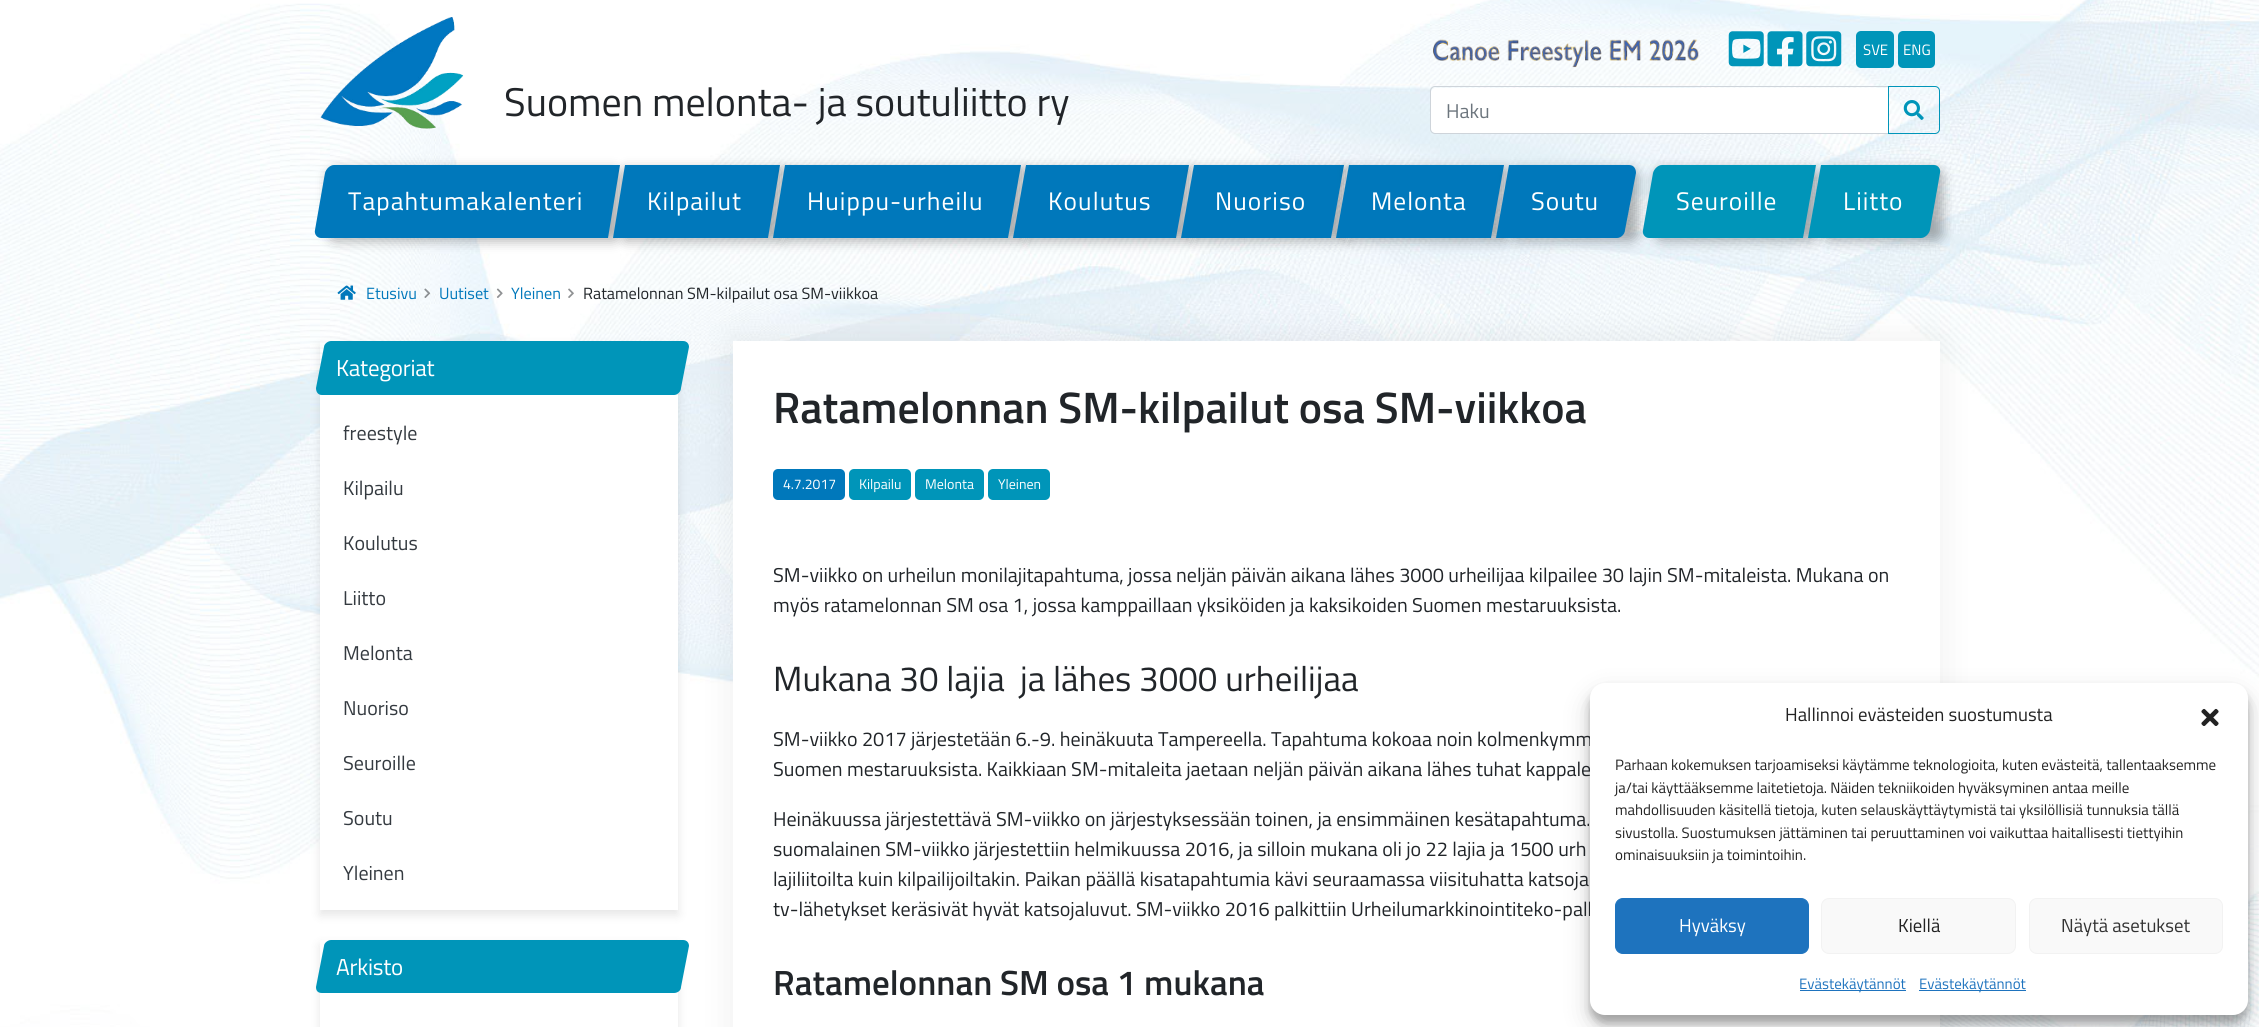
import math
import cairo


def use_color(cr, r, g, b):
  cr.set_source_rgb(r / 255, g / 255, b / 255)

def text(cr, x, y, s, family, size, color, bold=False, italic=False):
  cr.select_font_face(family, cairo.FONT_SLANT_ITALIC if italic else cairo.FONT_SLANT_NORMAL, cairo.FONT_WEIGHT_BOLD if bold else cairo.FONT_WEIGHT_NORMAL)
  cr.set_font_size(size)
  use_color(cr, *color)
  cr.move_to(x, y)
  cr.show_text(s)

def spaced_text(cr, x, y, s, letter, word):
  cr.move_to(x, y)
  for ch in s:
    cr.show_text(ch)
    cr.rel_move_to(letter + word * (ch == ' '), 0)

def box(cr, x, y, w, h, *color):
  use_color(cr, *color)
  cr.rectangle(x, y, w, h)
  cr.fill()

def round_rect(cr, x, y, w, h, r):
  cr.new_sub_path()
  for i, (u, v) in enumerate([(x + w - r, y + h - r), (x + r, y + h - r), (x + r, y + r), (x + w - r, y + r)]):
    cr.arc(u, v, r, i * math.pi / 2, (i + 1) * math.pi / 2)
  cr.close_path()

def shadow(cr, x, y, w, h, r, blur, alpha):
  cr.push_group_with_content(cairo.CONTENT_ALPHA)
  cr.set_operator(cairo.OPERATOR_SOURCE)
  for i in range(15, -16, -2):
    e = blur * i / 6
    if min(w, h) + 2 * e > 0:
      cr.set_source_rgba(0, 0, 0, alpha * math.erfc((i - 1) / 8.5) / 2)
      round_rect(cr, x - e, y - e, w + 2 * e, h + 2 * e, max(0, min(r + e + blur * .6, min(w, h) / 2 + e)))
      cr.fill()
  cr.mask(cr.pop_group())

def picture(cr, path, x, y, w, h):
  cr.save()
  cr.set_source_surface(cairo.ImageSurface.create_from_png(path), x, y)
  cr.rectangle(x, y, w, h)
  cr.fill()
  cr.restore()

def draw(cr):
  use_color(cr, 255, 255, 255)
  cr.paint()
  picture(cr, "img_01.png", 0, 0, 2259, 1027)
  picture(cr, "img_02.png", 320, 17, 144, 112)
  picture(cr, "img_03.png", 1433, 39, 266, 29)
  picture(cr, "img_04.png", 1728, 31, 36, 36)
  picture(cr, "img_05.png", 1767, 31, 36, 36)
  picture(cr, "img_06.png", 1806, 31, 36, 36)
  use_color(cr, 0, 149, 185)
  round_rect(cr, 1856, 31, 38, 37, 5)
  cr.fill()
  round_rect(cr, 1898, 31, 37, 37, 5)
  cr.fill()
  use_color(cr, 255, 255, 255)
  cr.new_path()
  cr.move_to(1435, 88)
  cr.line_to(1888, 88)
  cr.line_to(1888, 133)
  cr.line_to(1435, 133)
  cr.curve_to(1433, 133, 1431, 131, 1431, 129)
  cr.line_to(1431, 92)
  cr.curve_to(1431, 90, 1433, 88, 1435, 88)
  cr.close_path()
  cr.fill()
  cr.new_path()
  cr.move_to(1435, 86.5)
  cr.line_to(1888.5, 86.5)
  cr.line_to(1888.5, 133.5)
  cr.line_to(1435, 133.5)
  cr.curve_to(1432.5, 133.5, 1430.5, 131.5, 1430.5, 129)
  cr.line_to(1430.5, 91)
  cr.curve_to(1430.5, 88.5, 1432.5, 86.5, 1435, 86.5)
  cr.close_path()
  use_color(cr, 206, 212, 218)
  cr.set_line_width(1)
  cr.stroke()
  cr.new_path()
  cr.move_to(1888.5, 86.5)
  cr.line_to(1935, 86.5)
  cr.curve_to(1937.5, 86.5, 1939.5, 88.5, 1939.5, 91)
  cr.line_to(1939.5, 129)
  cr.curve_to(1939.5, 131.5, 1937.5, 133.5, 1935, 133.5)
  cr.line_to(1888.5, 133.5)
  cr.close_path()
  use_color(cr, 0, 149, 185)
  cr.stroke()
  picture(cr, "img_07.png", 1903, 100, 21, 20)
  use_color(cr, 0, 0, 0)
  shadow(cr, 328, 169, 293, 72, 8, 6, 0.3)
  use_color(cr, 0, 120, 187)
  cr.new_path()
  cr.move_to(334, 165)
  cr.line_to(620, 165)
  cr.line_to(608, 238)
  cr.line_to(321, 238)
  cr.curve_to(317, 238, 314, 234, 315, 230)
  cr.line_to(325, 173)
  cr.curve_to(326, 169, 330, 165, 334, 165)
  cr.close_path()
  cr.fill()
  use_color(cr, 0, 0, 0)
  shadow(cr, 626, 169, 155, 72, 0, 6, 0.3)
  use_color(cr, 0, 120, 187)
  cr.new_path()
  cr.move_to(625, 165)
  cr.line_to(780, 165)
  cr.line_to(768, 238)
  cr.line_to(613, 238)
  cr.close_path()
  cr.fill()
  use_color(cr, 0, 0, 0)
  shadow(cr, 786, 169, 237, 72, 0, 6, 0.3)
  use_color(cr, 0, 120, 187)
  cr.new_path()
  cr.move_to(785, 165)
  cr.line_to(1021, 165)
  cr.line_to(1008, 238)
  cr.line_to(773, 238)
  cr.close_path()
  cr.fill()
  use_color(cr, 0, 0, 0)
  shadow(cr, 1028, 169, 162, 72, 0, 6, 0.3)
  use_color(cr, 0, 120, 187)
  cr.new_path()
  cr.move_to(1026, 165)
  cr.line_to(1189, 165)
  cr.line_to(1176, 238)
  cr.line_to(1013, 238)
  cr.close_path()
  cr.fill()
  use_color(cr, 0, 0, 0)
  shadow(cr, 1195, 169, 150, 72, 0, 6, 0.3)
  use_color(cr, 0, 120, 187)
  cr.new_path()
  cr.move_to(1194, 165)
  cr.line_to(1344, 165)
  cr.line_to(1331, 238)
  cr.line_to(1181, 238)
  cr.close_path()
  cr.fill()
  use_color(cr, 0, 0, 0)
  shadow(cr, 1350, 169, 155, 72, 0, 6, 0.3)
  use_color(cr, 0, 120, 187)
  cr.new_path()
  cr.move_to(1349, 165)
  cr.line_to(1504, 165)
  cr.line_to(1491, 238)
  cr.line_to(1336, 238)
  cr.close_path()
  cr.fill()
  use_color(cr, 0, 0, 0)
  shadow(cr, 1510, 169, 128, 72, 8, 6, 0.3)
  use_color(cr, 0, 120, 187)
  cr.new_path()
  cr.move_to(1509, 165)
  cr.line_to(1629, 165)
  cr.curve_to(1634, 165, 1636, 169, 1636, 173)
  cr.line_to(1625, 230)
  cr.curve_to(1625, 234, 1621, 238, 1617, 238)
  cr.line_to(1496, 238)
  cr.close_path()
  cr.fill()
  use_color(cr, 0, 0, 0)
  shadow(cr, 1655, 169, 163, 72, 8, 6, 0.3)
  use_color(cr, 0, 149, 185)
  cr.new_path()
  cr.move_to(1662, 165)
  cr.line_to(1816, 165)
  cr.line_to(1803, 238)
  cr.line_to(1649, 238)
  cr.curve_to(1645, 238, 1642, 234, 1643, 230)
  cr.line_to(1653, 173)
  cr.curve_to(1654, 169, 1658, 165, 1662, 165)
  cr.close_path()
  cr.fill()
  use_color(cr, 0, 0, 0)
  shadow(cr, 1823, 169, 120, 72, 8, 6, 0.3)
  use_color(cr, 0, 149, 185)
  cr.new_path()
  cr.move_to(1821, 165)
  cr.line_to(1934, 165)
  cr.curve_to(1938, 165, 1941, 169, 1940, 173)
  cr.line_to(1930, 230)
  cr.curve_to(1929, 234, 1925, 238, 1921, 238)
  cr.line_to(1808, 238)
  cr.close_path()
  cr.fill()
  picture(cr, "img_08.png", 337, 285, 19, 15)
  picture(cr, "img_09.png", 424, 288, 7, 10)
  picture(cr, "img_10.png", 496, 288, 7, 10)
  picture(cr, "img_11.png", 568, 288, 6, 10)
  cr.save()
  cr.set_fill_rule(cairo.FILL_RULE_EVEN_ODD)
  cr.new_path()
  cr.move_to(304, 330)
  cr.line_to(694, 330)
  cr.line_to(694, 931)
  cr.line_to(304, 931)
  cr.close_path()
  cr.move_to(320, 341)
  cr.line_to(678, 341)
  cr.line_to(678, 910)
  cr.line_to(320, 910)
  cr.close_path()
  cr.clip()
  use_color(cr, 0, 0, 0)
  shadow(cr, 320, 346, 358, 569, 0, 5, 0.1)
  cr.restore()
  box(cr, 320, 395, 358, 515, 255, 255, 255)
  cr.save()
  cr.set_fill_rule(cairo.FILL_RULE_EVEN_ODD)
  cr.new_path()
  cr.move_to(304, 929)
  cr.line_to(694, 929)
  cr.line_to(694, 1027)
  cr.line_to(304, 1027)
  cr.close_path()
  cr.move_to(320, 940)
  cr.line_to(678, 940)
  cr.line_to(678, 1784)
  cr.line_to(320, 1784)
  cr.close_path()
  cr.clip()
  use_color(cr, 0, 0, 0)
  shadow(cr, 320, 945, 358, 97, 0, 5, 0.1)
  cr.restore()
  box(cr, 677, 994, 1, 33, 255, 255, 255)
  use_color(cr, 0, 0, 0)
  shadow(cr, 733, 341, 1207, 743, 0, 19, 0.07)
  use_color(cr, 0, 149, 185)
  cr.new_path()
  cr.move_to(331, 341)
  cr.line_to(683, 341)
  cr.curve_to(687, 341, 689, 344, 689, 347)
  cr.line_to(681, 388)
  cr.curve_to(681, 392, 677, 395, 674, 395)
  cr.line_to(322, 395)
  cr.curve_to(318, 395, 316, 392, 316, 388)
  cr.line_to(324, 347)
  cr.curve_to(324, 344, 328, 341, 331, 341)
  cr.close_path()
  cr.fill()
  cr.new_path()
  cr.move_to(331, 940)
  cr.line_to(683, 940)
  cr.curve_to(687, 940, 689, 943, 689, 946)
  cr.line_to(681, 987)
  cr.curve_to(681, 991, 677, 993, 674, 993)
  cr.line_to(322, 993)
  cr.curve_to(318, 993, 316, 991, 316, 987)
  cr.line_to(324, 946)
  cr.curve_to(324, 943, 328, 940, 331, 940)
  cr.close_path()
  cr.fill()
  box(cr, 733, 341, 1207, 686, 255, 255, 255)
  use_color(cr, 0, 120, 187)
  round_rect(cr, 773, 469, 72, 31, 5)
  cr.fill()
  use_color(cr, 0, 149, 185)
  round_rect(cr, 849, 469, 62, 31, 5)
  cr.fill()
  round_rect(cr, 915, 469, 69, 31, 5)
  cr.fill()
  round_rect(cr, 988, 469, 62, 31, 5)
  cr.fill()
  use_color(cr, 0, 0, 0)
  shadow(cr, 1590, 690, 658, 333, 15, 4, 0.23)
  shadow(cr, 1590, 695, 658, 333, 15, 12.5, 0.19)
  text(cr, 504, 116, "Suomen melonta- ja soutuliitto ry", "Titillium Web", 40, (33, 37, 41))
  text(cr, 1863, 55, "SVE", "Titillium Web", 15, (255, 255, 255))
  text(cr, 1903, 55, "ENG", "Titillium Web", 15, (255, 255, 255))
  text(cr, 1446, 118, "Haku", "Titillium Web", 20, (108, 117, 125))
  cr.set_font_size(25.4)
  use_color(cr, 255, 255, 255)
  spaced_text(cr, 348, 210, "Tapahtumakalenteri", 1.1, 0)
  spaced_text(cr, 647, 210, "Kilpailut", 1, 0)
  spaced_text(cr, 807, 210, "Huippu-urheilu", 1.1, 0)
  spaced_text(cr, 1048, 210, "Koulutus", 1.1, 0)
  spaced_text(cr, 1215, 210, "Nuoriso", 1.1, 0)
  spaced_text(cr, 1371, 210, "Melonta", 1, 0)
  spaced_text(cr, 1531, 210, "Soutu", 1, 0)
  spaced_text(cr, 1676, 210, "Seuroille", 1, 0)
  spaced_text(cr, 1843, 210, "Liitto", 1, 0)
  text(cr, 366, 299, "Etusivu", "Titillium Web", 16.25, (0, 120, 187))
  text(cr, 439, 299, "Uutiset", "Titillium Web", 16.25, (0, 120, 187))
  text(cr, 511, 299, "Yleinen", "Titillium Web", 16.25, (0, 120, 187))
  text(cr, 583, 299, "Ratamelonnan SM-kilpailut osa SM-viikkoa", "Titillium Web", 16.25, (33, 37, 41))
  cr.set_font_size(23)
  use_color(cr, 255, 255, 255)
  spaced_text(cr, 336, 376, "Kategoriat", -0.25, 0)
  text(cr, 343, 440, "freestyle", "Titillium Web", 20, (52, 58, 64))
  text(cr, 343, 495, "Kilpailu", "Titillium Web", 20, (52, 58, 64))
  text(cr, 343, 550, "Koulutus", "Titillium Web", 20, (52, 58, 64))
  text(cr, 343, 605, "Liitto", "Titillium Web", 20, (52, 58, 64))
  text(cr, 343, 660, "Melonta", "Titillium Web", 20, (52, 58, 64))
  text(cr, 343, 715, "Nuoriso", "Titillium Web", 20, (52, 58, 64))
  text(cr, 343, 770, "Seuroille", "Titillium Web", 20, (52, 58, 64))
  text(cr, 343, 825, "Soutu", "Titillium Web", 20, (52, 58, 64))
  text(cr, 343, 880, "Yleinen", "Titillium Web", 20, (52, 58, 64))
  cr.set_font_size(23)
  use_color(cr, 255, 255, 255)
  spaced_text(cr, 336, 975, "Arkisto", -0.25, 0)
  text(cr, 773, 423, "Ratamelonnan SM-kilpailut osa SM-viikkoa", "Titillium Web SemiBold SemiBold", 44, (33, 37, 41))
  text(cr, 783, 489, "4.7.2017", "Titillium Web", 14, (255, 255, 255))
  text(cr, 859, 489, "Kilpailu", "Titillium Web", 14, (255, 255, 255))
  text(cr, 925, 489, "Melonta", "Titillium Web", 14, (255, 255, 255))
  text(cr, 998, 489, "Yleinen", "Titillium Web", 14, (255, 255, 255))
  text(cr, 773, 582, "SM-viikko on urheilun monilajitapahtuma, jossa neljän päivän aikana lähes 3000 urheilijaa kilpailee 30 lajin SM-mitaleista. Mukana on", "Titillium Web", 20, (33, 37, 41))
  text(cr, 773, 612, "myös ratamelonnan SM osa 1, jossa kamppaillaan yksiköiden ja kaksikoiden Suomen mestaruuksista.", "Titillium Web", 20, (33, 37, 41))
  text(cr, 773, 691, "Mukana 30 lajia  ja lähes 3000 urheilijaa", "Titillium Web", 35, (33, 37, 41))
  text(cr, 773, 746, "SM-viikko 2017 järjestetään 6.-9. heinäkuuta Tampereella. Tapahtuma kokoaa noin kolmenkymm", "Titillium Web", 20, (33, 37, 41))
  text(cr, 773, 776, "Suomen mestaruuksista. Kaikkiaan SM-mitaleita jaetaan neljän päivän aikana lähes tuhat kappale", "Titillium Web", 20, (33, 37, 41))
  text(cr, 773, 826, "Heinäkuussa järjestettävä SM-viikko on järjestyksessään toinen, ja ensimmäinen kesätapahtuma.", "Titillium Web", 20, (33, 37, 41))
  text(cr, 773, 856, "suomalainen SM-viikko järjestettiin helmikuussa 2016, ja silloin mukana oli jo 22 lajia ja 1500 urh", "Titillium Web", 20, (33, 37, 41))
  text(cr, 773, 886, "lajiliitoilta kuin kilpailijoiltakin. Paikan päällä kisatapahtumia kävi seuraamassa viisituhatta katsoja", "Titillium Web", 20, (33, 37, 41))
  text(cr, 773, 916, "tv-lähetykset keräsivät hyvät katsojaluvut. SM-viikko 2016 palkittiin Urheilumarkkinointiteko-palk", "Titillium Web", 20, (33, 37, 41))
  text(cr, 773, 995, "Ratamelonnan SM osa 1 mukana", "Titillium Web SemiBold SemiBold", 35, (33, 37, 41))
  use_color(cr, 255, 255, 255)
  round_rect(cr, 1590, 683, 658, 332, 15)
  cr.fill()
  text(cr, 1785, 721, "Hallinnoi evästeiden suostumusta", "Titillium Web", 18.75, (34, 34, 34))
  picture(cr, "img_12.png", 2201, 708, 18, 18)
  text(cr, 1615, 770, "Parhaan kokemuksen tarjoamiseksi käytämme teknologioita, kuten evästeitä, tallentaaksemme", "Titillium Web", 15, (34, 34, 34))
  text(cr, 1615, 793, "ja/tai käyttääksemme laitetietoja. Näiden tekniikoiden hyväksyminen antaa meille", "Titillium Web", 15, (34, 34, 34))
  text(cr, 1615, 815, "mahdollisuuden käsitellä tietoja, kuten selauskäyttäytymistä tai yksilöllisiä tunnuksia tällä", "Titillium Web", 15, (34, 34, 34))
  text(cr, 1615, 838, "sivustolla. Suostumuksen jättäminen tai peruuttaminen voi vaikuttaa haitallisesti tiettyihin", "Titillium Web", 15, (34, 34, 34))
  text(cr, 1615, 860, "ominaisuuksiin ja toimintoihin.", "Titillium Web", 15, (34, 34, 34))
  use_color(cr, 30, 115, 190)
  round_rect(cr, 1615.5, 898.5, 193, 55, 7.5)
  cr.fill_preserve()
  cr.stroke()
  text(cr, 1679, 932, "Hyväksy", "Titillium Web", 18.75, (255, 255, 255))
  use_color(cr, 249, 249, 249)
  round_rect(cr, 1821.5, 898.5, 194, 55, 7.5)
  cr.fill_preserve()
  use_color(cr, 242, 242, 242)
  cr.stroke()
  text(cr, 1898, 932, "Kiellä", "Titillium Web", 18.75, (34, 34, 34))
  use_color(cr, 249, 249, 249)
  round_rect(cr, 2029.5, 898.5, 193, 55, 7.5)
  cr.fill_preserve()
  use_color(cr, 242, 242, 242)
  cr.stroke()
  text(cr, 2061, 932, "Näytä asetukset", "Titillium Web", 18.75, (51, 51, 51))
  box(cr, 1800, 990, 106, 1, 30, 115, 190)
  text(cr, 1799, 989, "Evästekäytännöt", "Titillium Web", 15, (30, 115, 190))
  box(cr, 1919, 990, 107, 1, 30, 115, 190)
  text(cr, 1919, 989, "Evästekäytännöt", "Titillium Web", 15, (30, 115, 190))


surface = cairo.ImageSurface(cairo.FORMAT_RGB24, 2259, 1027)
cr = cairo.Context(surface)
options = cairo.FontOptions()
options.set_hint_metrics(cairo.HINT_METRICS_OFF)
options.set_hint_style(cairo.HINT_STYLE_NONE)
cr.set_font_options(options)
cr.set_miter_limit(4)
draw(cr)
surface.write_to_png("out.png")
